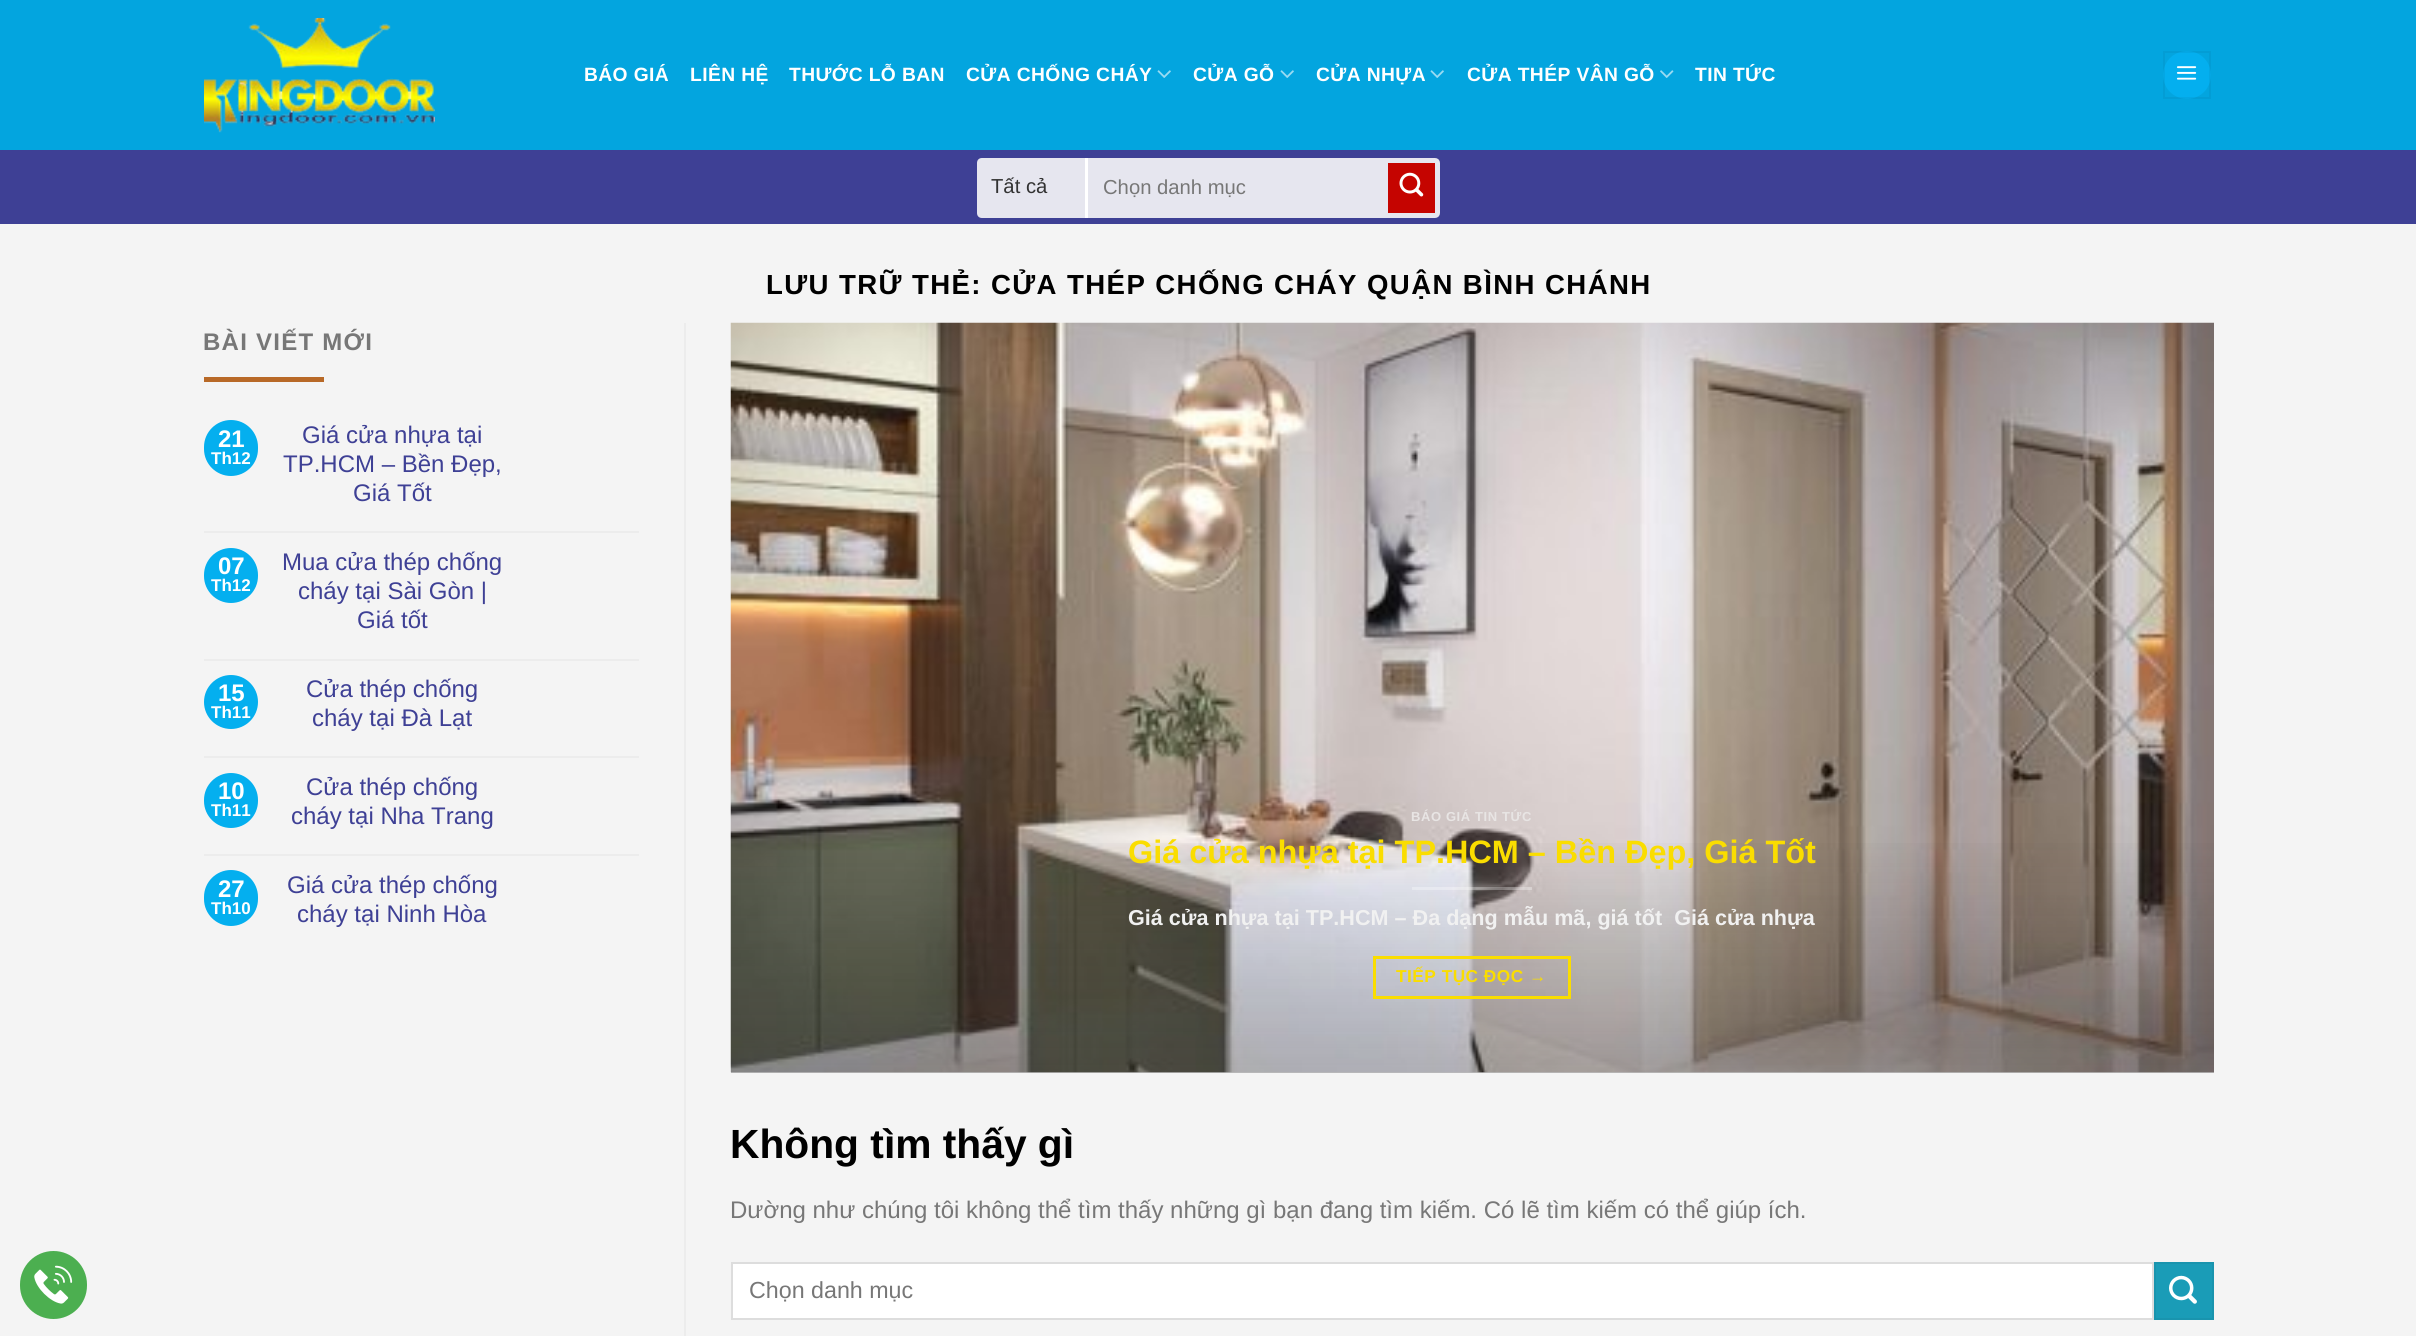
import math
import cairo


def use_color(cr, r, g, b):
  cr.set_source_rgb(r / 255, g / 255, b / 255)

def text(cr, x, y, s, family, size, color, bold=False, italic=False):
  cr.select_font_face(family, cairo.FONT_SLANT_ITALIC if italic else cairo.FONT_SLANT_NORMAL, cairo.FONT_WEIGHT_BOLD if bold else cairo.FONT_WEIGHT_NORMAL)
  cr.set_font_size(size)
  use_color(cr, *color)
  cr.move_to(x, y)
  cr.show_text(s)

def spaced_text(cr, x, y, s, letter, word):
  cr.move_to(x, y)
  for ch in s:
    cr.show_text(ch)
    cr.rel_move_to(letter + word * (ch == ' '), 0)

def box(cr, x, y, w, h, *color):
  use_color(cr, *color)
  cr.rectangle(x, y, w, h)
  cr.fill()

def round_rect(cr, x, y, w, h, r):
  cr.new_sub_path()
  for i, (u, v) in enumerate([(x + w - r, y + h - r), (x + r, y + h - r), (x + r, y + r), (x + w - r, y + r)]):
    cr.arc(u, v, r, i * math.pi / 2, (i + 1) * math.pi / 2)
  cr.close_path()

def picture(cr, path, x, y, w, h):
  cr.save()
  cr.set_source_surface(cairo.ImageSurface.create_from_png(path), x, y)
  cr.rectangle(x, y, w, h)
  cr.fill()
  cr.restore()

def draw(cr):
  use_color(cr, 244, 244, 244)
  cr.paint()
  use_color(cr, 76, 175, 80)
  round_rect(cr, 20, 1251, 67, 68, 33.5)
  cr.fill()
  picture(cr, "img_01.png", 34, 1265, 39, 39)
  box(cr, 0, 0, 2416, 150, 3, 165, 223)
  picture(cr, "img_02.png", 204, 18, 231, 115)
  picture(cr, "img_03.png", 1157, 70, 14, 8)
  picture(cr, "img_03.png", 1280, 70, 14, 8)
  picture(cr, "img_03.png", 1430, 70, 14, 8)
  picture(cr, "img_04.png", 1660, 70, 14, 8)
  use_color(cr, 4, 175, 239)
  cr.arc(2187, 75, 24, 0, 2 * math.pi)
  cr.fill()
  cr.rectangle(2164, 52, 46, 46)
  cr.set_source_rgba(0, 0, 0, 0.05)
  cr.stroke()
  picture(cr, "img_05.png", 2176, 66, 21, 14)
  box(cr, 0, 150, 2416, 74, 62, 64, 149)
  use_color(cr, 230, 230, 239)
  cr.new_path()
  cr.move_to(982, 158)
  cr.line_to(1088, 158)
  cr.line_to(1088, 218)
  cr.line_to(982, 218)
  cr.curve_to(979, 218, 977, 216, 977, 213)
  cr.line_to(977, 163)
  cr.curve_to(977, 160, 979, 158, 982, 158)
  cr.close_path()
  cr.fill()
  box(cr, 1085, 158, 3, 60, 255, 255, 255)
  box(cr, 1088, 158, 295, 60, 230, 230, 239)
  use_color(cr, 197, 4, 0)
  cr.new_path()
  cr.move_to(1385.5, 160.5)
  cr.line_to(1435, 160.5)
  cr.curve_to(1436.5, 160.5, 1437.5, 161.5, 1437.5, 163)
  cr.line_to(1437.5, 213)
  cr.curve_to(1437.5, 214.5, 1436.5, 215.5, 1435, 215.5)
  cr.line_to(1385.5, 215.5)
  cr.close_path()
  cr.fill_preserve()
  use_color(cr, 230, 230, 239)
  cr.set_line_width(5)
  cr.stroke()
  picture(cr, "img_06.png", 1399, 172, 25, 25)
  box(cr, 204, 377, 120, 5, 184, 105, 39)
  use_color(cr, 4, 175, 239)
  round_rect(cr, 204, 420, 54, 56, 27)
  cr.fill()
  box(cr, 204, 531, 435, 2, 236, 236, 236)
  use_color(cr, 4, 175, 239)
  round_rect(cr, 204, 548, 54, 55, 27)
  cr.fill()
  box(cr, 204, 659, 435, 2, 236, 236, 236)
  use_color(cr, 4, 175, 239)
  cr.arc(231, 702, 27, 0, 2 * math.pi)
  cr.fill()
  box(cr, 204, 756, 435, 2, 236, 236, 236)
  use_color(cr, 4, 175, 239)
  round_rect(cr, 204, 773, 54, 55, 27)
  cr.fill()
  box(cr, 204, 854, 435, 2, 236, 236, 236)
  use_color(cr, 4, 175, 239)
  round_rect(cr, 204, 870, 54, 56, 27)
  cr.fill()
  box(cr, 684, 323, 2, 1013, 236, 236, 236)
  picture(cr, "img_07.png", 730, 322, 1484, 751)
  gradient = cairo.LinearGradient(1472, 1073, 1472, 323)
  gradient.add_color_stop_rgba(0, 0.196, 0.196, 0.196, 0.3)
  gradient.add_color_stop_rgba(0.33, 0.196, 0.196, 0.196, 0)
  cr.set_source(gradient)
  cr.rectangle(731, 843, 1483, 230)
  cr.fill()
  cr.set_source_rgba(1, 1, 1, 0.3)
  cr.rectangle(1412, 887, 120, 3)
  cr.fill()
  cr.rectangle(1374.5, 957.5, 195, 40)
  use_color(cr, 250, 221, 0)
  cr.set_line_width(3)
  cr.stroke()
  use_color(cr, 255, 255, 255)
  cr.rectangle(732, 1263, 1421, 56)
  cr.fill_preserve()
  use_color(cr, 221, 221, 221)
  cr.set_line_width(2)
  cr.stroke()
  use_color(cr, 26, 156, 183)
  cr.rectangle(2155, 1263, 58, 56)
  cr.fill_preserve()
  use_color(cr, 25, 148, 174)
  cr.stroke()
  picture(cr, "img_08.png", 2169, 1275, 28, 29)
  cr.select_font_face("Liberation Sans", cairo.FONT_SLANT_NORMAL, cairo.FONT_WEIGHT_BOLD)
  cr.set_font_size(19.25)
  use_color(cr, 255, 255, 255)
  spaced_text(cr, 584, 81, "BÁO GIÁ", 0.4, 0)
  spaced_text(cr, 690, 81, "LIÊN HỆ", 0.4, 0)
  spaced_text(cr, 789, 81, "THƯỚC LỖ BAN", 0.4, 0)
  spaced_text(cr, 966, 81, "CỬA CHỐNG CHÁY", 0.4, 0)
  spaced_text(cr, 1193, 81, "CỬA GỖ", 0.4, 0)
  spaced_text(cr, 1316, 81, "CỬA NHỰA", 0.4, 0)
  spaced_text(cr, 1467, 81, "CỬA THÉP VÂN GỖ", 0.4, 0)
  spaced_text(cr, 1695, 81, "TIN TỨC", 0.4, 0)
  text(cr, 991, 193, "Tất cả", "Liberation Sans", 20.25, (51, 51, 51))
  text(cr, 1103, 194, "Chọn danh mục", "Liberation Sans", 20.25, (119, 119, 119))
  cr.select_font_face("Liberation Sans", cairo.FONT_SLANT_NORMAL, cairo.FONT_WEIGHT_BOLD)
  cr.set_font_size(27.6)
  use_color(cr, 0, 0, 0)
  spaced_text(cr, 766, 294, "LƯU TRỮ THẺ: CỬA THÉP CHỐNG CHÁY QUẬN BÌNH CHÁNH", 1.4, 0)
  cr.set_font_size(24)
  use_color(cr, 119, 119, 119)
  spaced_text(cr, 203, 350, "BÀI VIẾT MỚI", 1.25, 0)
  text(cr, 218, 447, "21", "Liberation Sans", 24, (255, 255, 255), bold=True)
  text(cr, 211, 464, "Th12", "Liberation Sans", 17, (255, 255, 255), bold=True)
  text(cr, 302, 443, "Giá cửa nhựa tại", "Liberation Sans", 24, (62, 64, 149))
  text(cr, 283, 472, "TP.HCM – Bền Đẹp,", "Liberation Sans", 24, (62, 64, 149))
  text(cr, 353, 501, "Giá Tốt", "Liberation Sans", 24, (62, 64, 149))
  text(cr, 218, 574, "07", "Liberation Sans", 24, (255, 255, 255), bold=True)
  text(cr, 211, 591, "Th12", "Liberation Sans", 17, (255, 255, 255), bold=True)
  text(cr, 282, 570, "Mua cửa thép chống", "Liberation Sans", 24, (62, 64, 149))
  text(cr, 298, 599, "cháy tại Sài Gòn |", "Liberation Sans", 24, (62, 64, 149))
  text(cr, 357, 628, "Giá tốt", "Liberation Sans", 24, (62, 64, 149))
  text(cr, 218, 701, "15", "Liberation Sans", 24, (255, 255, 255), bold=True)
  text(cr, 211, 718, "Th11", "Liberation Sans", 17, (255, 255, 255), bold=True)
  text(cr, 306, 697, "Cửa thép chống", "Liberation Sans", 24, (62, 64, 149))
  text(cr, 312, 726, "cháy tại Đà Lạt", "Liberation Sans", 24, (62, 64, 149))
  text(cr, 218, 799, "10", "Liberation Sans", 24, (255, 255, 255), bold=True)
  text(cr, 211, 816, "Th11", "Liberation Sans", 17, (255, 255, 255), bold=True)
  text(cr, 306, 795, "Cửa thép chống", "Liberation Sans", 24, (62, 64, 149))
  text(cr, 291, 824, "cháy tại Nha Trang", "Liberation Sans", 24, (62, 64, 149))
  text(cr, 218, 897, "27", "Liberation Sans", 24, (255, 255, 255), bold=True)
  text(cr, 211, 914, "Th10", "Liberation Sans", 17, (255, 255, 255), bold=True)
  text(cr, 287, 893, "Giá cửa thép chống", "Liberation Sans", 24, (62, 64, 149))
  text(cr, 297, 922, "cháy tại Ninh Hòa", "Liberation Sans", 24, (62, 64, 149))
  cr.select_font_face("Liberation Sans", cairo.FONT_SLANT_NORMAL, cairo.FONT_WEIGHT_BOLD)
  cr.set_font_size(13)
  use_color(cr, 232, 229, 228)
  spaced_text(cr, 1411, 821, "BÁO GIÁ TIN TỨC", 0.6, 0)
  text(cr, 1128, 863, "Giá cửa nhựa tại TP.HCM – Bền Đẹp, Giá Tốt", "Liberation Sans", 32.4, (250, 221, 0), bold=True)
  text(cr, 1128, 925, "Giá cửa nhựa tại TP.HCM – Đa dạng mẫu mã, giá tốt  Giá cửa nhựa", "Liberation Sans", 21.6, (241, 241, 241), bold=True)
  cr.set_font_size(17.25)
  use_color(cr, 250, 221, 0)
  spaced_text(cr, 1396, 982, "TIẾP TỤC ĐỌC →", 0.5, 0)
  text(cr, 730, 1158, "Không tìm thấy gì", "Liberation Sans", 40.75, (0, 0, 0), bold=True)
  text(cr, 730, 1218, "Dường như chúng tôi không thể tìm thấy những gì bạn đang tìm kiếm. Có lẽ tìm kiếm có thể giúp ích.", "Liberation Sans", 24, (119, 119, 119))
  text(cr, 749, 1298, "Chọn danh mục", "Liberation Sans", 23.25, (119, 119, 119))


surface = cairo.ImageSurface(cairo.FORMAT_RGB24, 2416, 1336)
cr = cairo.Context(surface)
options = cairo.FontOptions()
options.set_hint_metrics(cairo.HINT_METRICS_OFF)
options.set_hint_style(cairo.HINT_STYLE_NONE)
cr.set_font_options(options)
cr.set_miter_limit(4)
draw(cr)
surface.write_to_png("out.png")
